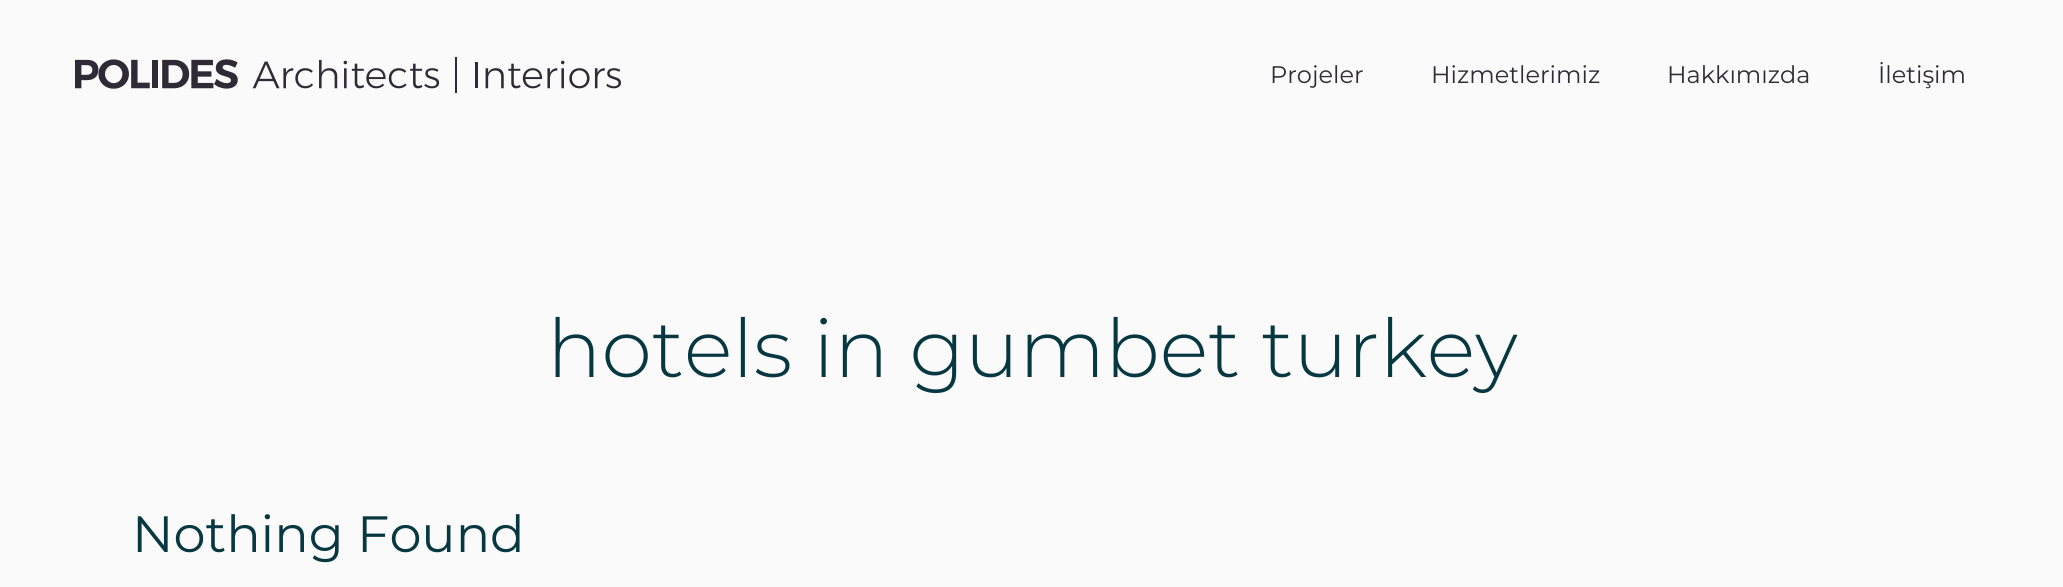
import math
import cairo


def use_color(cr, r, g, b):
  cr.set_source_rgb(r / 255, g / 255, b / 255)

def text(cr, x, y, s, family, size, color, bold=False, italic=False):
  cr.select_font_face(family, cairo.FONT_SLANT_ITALIC if italic else cairo.FONT_SLANT_NORMAL, cairo.FONT_WEIGHT_BOLD if bold else cairo.FONT_WEIGHT_NORMAL)
  cr.set_font_size(size)
  use_color(cr, *color)
  cr.move_to(x, y)
  cr.show_text(s)

def picture(cr, path, x, y, w, h):
  cr.save()
  cr.set_source_surface(cairo.ImageSurface.create_from_png(path), x, y)
  cr.rectangle(x, y, w, h)
  cr.fill()
  cr.restore()

def draw(cr):
  use_color(cr, 251, 250, 250)
  cr.paint()
  picture(cr, "img_01.png", 75, 57, 546, 36)
  text(cr, 1270, 83, "Projeler", "Montserrat", 24, (46, 43, 54))
  text(cr, 1431, 83, "Hizmetlerimiz", "Montserrat", 24, (46, 43, 54))
  text(cr, 1667, 83, "Hakkımızda", "Montserrat", 24, (46, 43, 54))
  text(cr, 1878, 83, "İletişim", "Montserrat", 24, (46, 43, 54))
  text(cr, 547, 377, "hotels in gumbet turkey", "Montserrat Light", 81, (7, 56, 66))
  text(cr, 132, 552, "Nothing Found", "Montserrat", 51, (7, 56, 66))


surface = cairo.ImageSurface(cairo.FORMAT_RGB24, 2063, 587)
cr = cairo.Context(surface)
options = cairo.FontOptions()
options.set_hint_metrics(cairo.HINT_METRICS_OFF)
options.set_hint_style(cairo.HINT_STYLE_NONE)
cr.set_font_options(options)
cr.set_miter_limit(4)
draw(cr)
surface.write_to_png("out.png")
